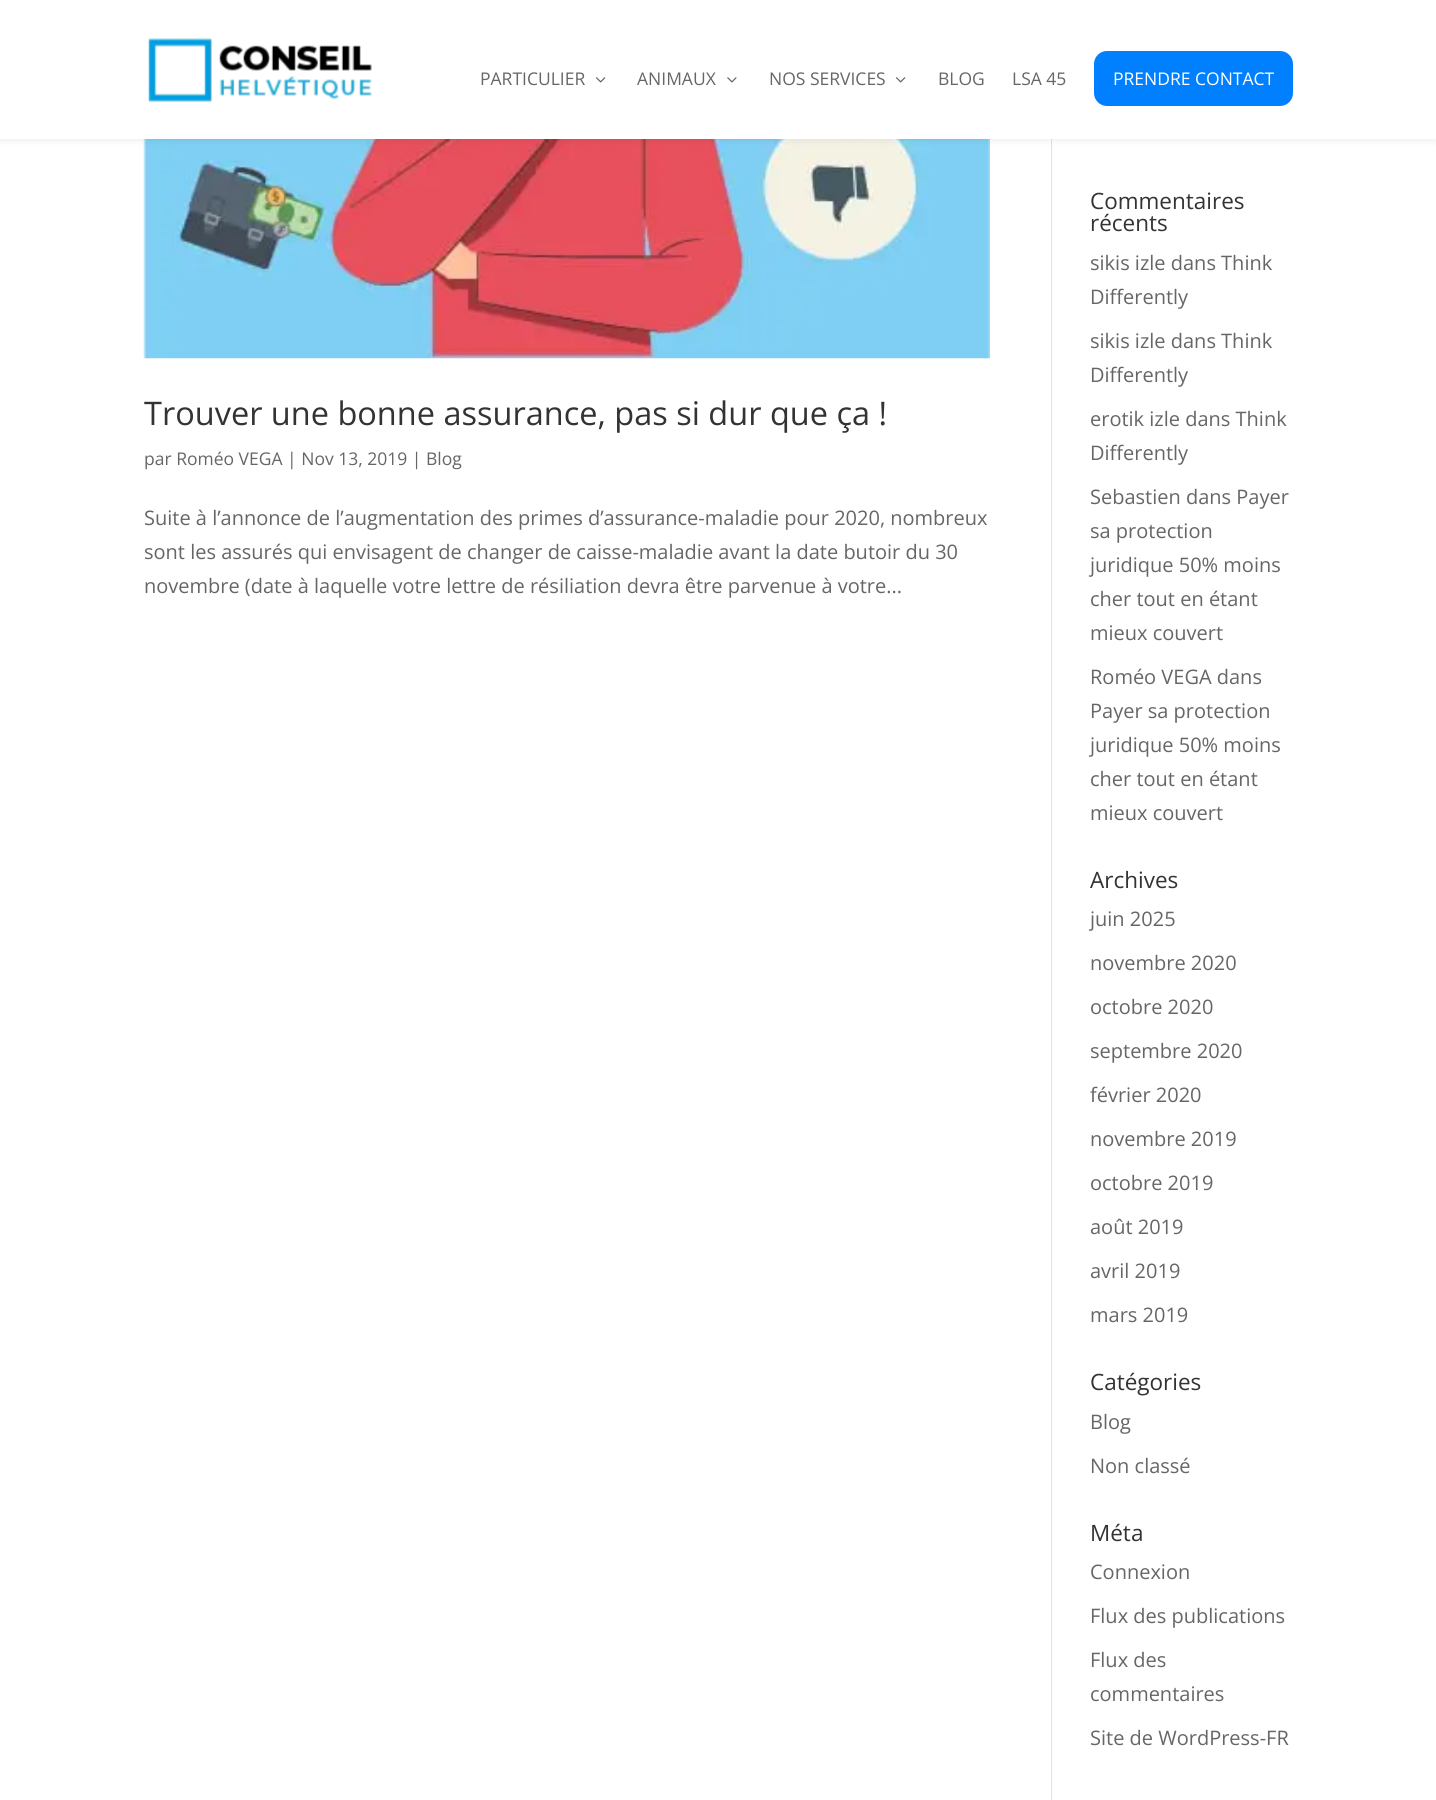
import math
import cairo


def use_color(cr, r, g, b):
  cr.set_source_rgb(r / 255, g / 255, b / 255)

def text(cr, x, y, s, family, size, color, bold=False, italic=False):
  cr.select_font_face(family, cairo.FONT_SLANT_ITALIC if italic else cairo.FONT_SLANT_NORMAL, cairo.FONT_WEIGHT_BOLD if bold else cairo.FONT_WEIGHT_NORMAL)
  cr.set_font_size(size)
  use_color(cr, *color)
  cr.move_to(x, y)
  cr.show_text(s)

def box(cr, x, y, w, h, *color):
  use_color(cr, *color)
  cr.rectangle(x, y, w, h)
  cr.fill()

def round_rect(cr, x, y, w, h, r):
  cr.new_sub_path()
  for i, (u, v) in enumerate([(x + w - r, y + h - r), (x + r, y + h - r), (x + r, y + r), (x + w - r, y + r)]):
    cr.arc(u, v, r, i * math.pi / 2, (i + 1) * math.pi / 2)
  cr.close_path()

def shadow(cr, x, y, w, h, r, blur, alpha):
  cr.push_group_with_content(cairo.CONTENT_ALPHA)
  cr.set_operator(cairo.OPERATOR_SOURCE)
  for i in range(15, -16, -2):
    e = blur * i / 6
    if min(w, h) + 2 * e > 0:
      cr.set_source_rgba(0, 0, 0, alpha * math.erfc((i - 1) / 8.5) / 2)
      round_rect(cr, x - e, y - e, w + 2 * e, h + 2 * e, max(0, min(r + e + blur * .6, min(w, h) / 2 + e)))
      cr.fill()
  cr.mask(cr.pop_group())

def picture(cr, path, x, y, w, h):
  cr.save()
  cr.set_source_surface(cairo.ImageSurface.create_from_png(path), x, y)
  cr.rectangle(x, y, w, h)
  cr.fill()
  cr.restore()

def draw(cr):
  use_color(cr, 255, 255, 255)
  cr.paint()
  box(cr, 1051, 139, 1, 1661, 226, 226, 226)
  picture(cr, "img_04.png", 143, 139, 847, 220)
  use_color(cr, 0, 0, 0)
  shadow(cr, 0, 0, 1436, 139, 0, 4.5, 0.1)
  box(cr, 0, 0, 1436, 139, 255, 255, 255)
  picture(cr, "img_01.png", 148, 38, 224, 64)
  picture(cr, "img_02.png", 596, 77, 10, 6)
  picture(cr, "img_03.png", 727, 77, 10, 6)
  picture(cr, "img_02.png", 896, 77, 10, 6)
  use_color(cr, 0, 128, 255)
  round_rect(cr, 1094, 51, 199, 55, 13)
  cr.fill()
  text(cr, 480, 85, "PARTICULIER", "Open Sans", 17.5, (102, 102, 102))
  text(cr, 637, 85, "ANIMAUX", "Open Sans", 17.5, (102, 102, 102))
  text(cr, 769, 85, "NOS SERVICES", "Open Sans", 17.5, (102, 102, 102))
  text(cr, 938, 85, "BLOG", "Open Sans", 17.5, (102, 102, 102))
  text(cr, 1012, 85, "LSA 45", "Open Sans", 17.5, (102, 102, 102))
  text(cr, 1113, 85, "PRENDRE CONTACT", "Open Sans", 17.5, (255, 255, 255))
  text(cr, 144, 425, "Trouver une bonne assurance, pas si dur que ça !", "Open Sans", 32.5, (51, 51, 51))
  text(cr, 144, 465, "par Roméo VEGA | Nov 13, 2019 | Blog", "Open Sans", 17.5, (102, 102, 102))
  text(cr, 144, 525, "Suite à l’annonce de l’augmentation des primes d’assurance-maladie pour 2020, nombreux", "Open Sans", 20, (102, 102, 102))
  text(cr, 144, 559, "sont les assurés qui envisagent de changer de caisse-maladie avant la date butoir du 30", "Open Sans", 20, (102, 102, 102))
  text(cr, 144, 593, "novembre (date à laquelle votre lettre de résiliation devra être parvenue à votre...", "Open Sans", 20, (102, 102, 102))
  text(cr, 1090, 209, "Commentaires", "Open Sans", 22.5, (51, 51, 51))
  text(cr, 1090, 231, "récents", "Open Sans", 22.5, (51, 51, 51))
  text(cr, 1090, 270, "sikis izle dans Think", "Open Sans", 20, (102, 102, 102))
  text(cr, 1090, 304, "Differently", "Open Sans", 20, (102, 102, 102))
  text(cr, 1090, 348, "sikis izle dans Think", "Open Sans", 20, (102, 102, 102))
  text(cr, 1090, 382, "Differently", "Open Sans", 20, (102, 102, 102))
  text(cr, 1090, 426, "erotik izle dans Think", "Open Sans", 20, (102, 102, 102))
  text(cr, 1090, 460, "Differently", "Open Sans", 20, (102, 102, 102))
  text(cr, 1090, 504, "Sebastien dans Payer", "Open Sans", 20, (102, 102, 102))
  text(cr, 1090, 538, "sa protection", "Open Sans", 20, (102, 102, 102))
  text(cr, 1090, 572, "juridique 50% moins", "Open Sans", 20, (102, 102, 102))
  text(cr, 1090, 606, "cher tout en étant", "Open Sans", 20, (102, 102, 102))
  text(cr, 1090, 640, "mieux couvert", "Open Sans", 20, (102, 102, 102))
  text(cr, 1090, 684, "Roméo VEGA dans", "Open Sans", 20, (102, 102, 102))
  text(cr, 1090, 718, "Payer sa protection", "Open Sans", 20, (102, 102, 102))
  text(cr, 1090, 752, "juridique 50% moins", "Open Sans", 20, (102, 102, 102))
  text(cr, 1090, 786, "cher tout en étant", "Open Sans", 20, (102, 102, 102))
  text(cr, 1090, 820, "mieux couvert", "Open Sans", 20, (102, 102, 102))
  text(cr, 1090, 888, "Archives", "Open Sans", 22.5, (51, 51, 51))
  text(cr, 1090, 926, "juin 2025", "Open Sans", 20, (102, 102, 102))
  text(cr, 1090, 970, "novembre 2020", "Open Sans", 20, (102, 102, 102))
  text(cr, 1090, 1014, "octobre 2020", "Open Sans", 20, (102, 102, 102))
  text(cr, 1090, 1058, "septembre 2020", "Open Sans", 20, (102, 102, 102))
  text(cr, 1090, 1102, "février 2020", "Open Sans", 20, (102, 102, 102))
  text(cr, 1090, 1146, "novembre 2019", "Open Sans", 20, (102, 102, 102))
  text(cr, 1090, 1190, "octobre 2019", "Open Sans", 20, (102, 102, 102))
  text(cr, 1090, 1234, "août 2019", "Open Sans", 20, (102, 102, 102))
  text(cr, 1090, 1278, "avril 2019", "Open Sans", 20, (102, 102, 102))
  text(cr, 1090, 1322, "mars 2019", "Open Sans", 20, (102, 102, 102))
  text(cr, 1090, 1390, "Catégories", "Open Sans", 22.5, (51, 51, 51))
  text(cr, 1090, 1429, "Blog", "Open Sans", 20, (102, 102, 102))
  text(cr, 1090, 1473, "Non classé", "Open Sans", 20, (102, 102, 102))
  text(cr, 1090, 1541, "Méta", "Open Sans", 22.5, (51, 51, 51))
  text(cr, 1090, 1579, "Connexion", "Open Sans", 20, (102, 102, 102))
  text(cr, 1090, 1623, "Flux des publications", "Open Sans", 20, (102, 102, 102))
  text(cr, 1090, 1667, "Flux des", "Open Sans", 20, (102, 102, 102))
  text(cr, 1090, 1701, "commentaires", "Open Sans", 20, (102, 102, 102))
  text(cr, 1090, 1745, "Site de WordPress-FR", "Open Sans", 20, (102, 102, 102))


surface = cairo.ImageSurface(cairo.FORMAT_RGB24, 1436, 1800)
cr = cairo.Context(surface)
options = cairo.FontOptions()
options.set_hint_metrics(cairo.HINT_METRICS_OFF)
options.set_hint_style(cairo.HINT_STYLE_NONE)
cr.set_font_options(options)
cr.set_miter_limit(4)
draw(cr)
surface.write_to_png("out.png")
